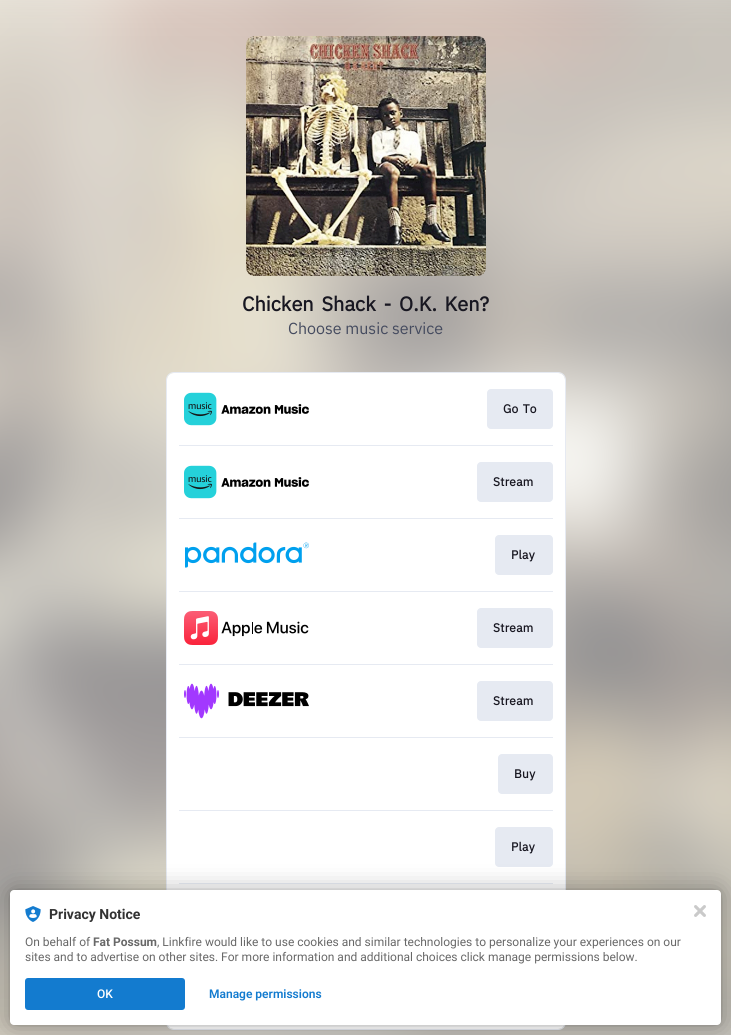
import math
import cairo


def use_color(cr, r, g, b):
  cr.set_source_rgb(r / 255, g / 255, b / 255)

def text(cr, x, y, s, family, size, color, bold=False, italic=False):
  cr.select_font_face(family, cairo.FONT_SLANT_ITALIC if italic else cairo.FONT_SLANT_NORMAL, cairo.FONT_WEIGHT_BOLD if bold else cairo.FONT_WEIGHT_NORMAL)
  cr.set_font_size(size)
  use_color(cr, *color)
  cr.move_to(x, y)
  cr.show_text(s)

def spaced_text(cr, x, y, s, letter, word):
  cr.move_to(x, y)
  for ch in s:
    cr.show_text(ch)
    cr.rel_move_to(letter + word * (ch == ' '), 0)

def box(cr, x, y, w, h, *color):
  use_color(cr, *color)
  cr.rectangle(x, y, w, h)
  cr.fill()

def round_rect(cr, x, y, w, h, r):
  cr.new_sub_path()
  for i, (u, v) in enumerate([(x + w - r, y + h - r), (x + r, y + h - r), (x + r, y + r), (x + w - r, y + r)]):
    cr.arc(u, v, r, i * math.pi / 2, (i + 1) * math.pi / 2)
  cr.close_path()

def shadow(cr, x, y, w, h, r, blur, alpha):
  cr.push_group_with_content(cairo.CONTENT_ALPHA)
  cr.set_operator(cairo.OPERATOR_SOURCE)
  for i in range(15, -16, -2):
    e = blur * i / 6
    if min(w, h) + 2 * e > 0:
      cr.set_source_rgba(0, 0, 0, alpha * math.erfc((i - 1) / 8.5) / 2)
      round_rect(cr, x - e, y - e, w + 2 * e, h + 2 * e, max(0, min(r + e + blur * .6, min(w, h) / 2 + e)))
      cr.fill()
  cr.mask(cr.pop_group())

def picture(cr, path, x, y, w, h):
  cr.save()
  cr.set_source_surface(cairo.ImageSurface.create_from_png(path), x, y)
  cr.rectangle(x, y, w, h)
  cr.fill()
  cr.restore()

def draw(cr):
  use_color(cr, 255, 255, 255)
  cr.paint()
  picture(cr, "img_01.png", 0, 0, 731, 1035)
  picture(cr, "img_02.png", 246, 36, 240, 240)
  round_rect(cr, 166.5, 372.5, 399, 657, 7.5)
  use_color(cr, 230, 234, 242)
  cr.set_line_width(1)
  cr.stroke()
  use_color(cr, 255, 255, 255)
  round_rect(cr, 167, 373, 398, 656, 7)
  cr.fill()
  picture(cr, "img_03.png", 184, 392, 125, 34)
  use_color(cr, 230, 234, 242)
  round_rect(cr, 487, 389, 66, 40, 4)
  cr.fill()
  box(cr, 179, 445, 374, 1, 230, 234, 242)
  picture(cr, "img_03.png", 184, 465, 125, 34)
  round_rect(cr, 477, 462, 76, 40, 4)
  cr.fill()
  box(cr, 179, 518, 374, 1, 230, 234, 242)
  picture(cr, "img_04.png", 185, 542, 124, 26)
  round_rect(cr, 495, 535, 58, 40, 4)
  cr.fill()
  box(cr, 179, 591, 374, 1, 230, 234, 242)
  picture(cr, "img_05.png", 184, 611, 125, 34)
  round_rect(cr, 477, 608, 76, 40, 4)
  cr.fill()
  box(cr, 179, 664, 374, 1, 230, 234, 242)
  picture(cr, "img_06.png", 184, 683, 125, 36)
  round_rect(cr, 477, 681, 76, 40, 4)
  cr.fill()
  box(cr, 179, 737, 374, 1, 230, 234, 242)
  round_rect(cr, 498, 754, 55, 40, 4)
  cr.fill()
  box(cr, 179, 810, 374, 1, 230, 234, 242)
  round_rect(cr, 495, 827, 58, 40, 4)
  cr.fill()
  box(cr, 179, 883, 374, 1, 230, 234, 242)
  use_color(cr, 0, 0, 0)
  shadow(cr, 10, 890, 711, 135, 4, 2, 0.12)
  shadow(cr, 10, 890, 711, 135, 4, 12, 0.3)
  use_color(cr, 255, 255, 255)
  round_rect(cr, 10, 890, 711, 135, 4)
  cr.fill()
  picture(cr, "img_07.png", 25, 906, 16, 16)
  use_color(cr, 19, 123, 207)
  round_rect(cr, 25, 978, 160, 32, 3)
  cr.fill()
  picture(cr, "img_08.png", 694, 905, 12, 12)
  text(cr, 256, 62, "Chicken Sha…", "IBM Plex Sans", 12, (183, 168, 148))
  text(cr, 270, 80, "by's", "IBM Plex Sans", 12, (183, 168, 148))
  text(cr, 309, 80, "t", "IBM Plex Sans", 12, (183, 168, 148))
  text(cr, 450, 62, "0:00", "IBM Plex Sans", 12, (126, 119, 105))
  cr.select_font_face("IBM Plex Sans", cairo.FONT_SLANT_NORMAL, cairo.FONT_WEIGHT_BOLD)
  cr.set_font_size(20)
  use_color(cr, 24, 23, 33)
  spaced_text(cr, 242, 311, "Chicken Shack - O.K. Ken?", 0, 3)
  text(cr, 288, 334, "Choose music service", "IBM Plex Sans", 16, (69, 75, 95))
  cr.select_font_face("IBM Plex Sans", cairo.FONT_SLANT_NORMAL, cairo.FONT_WEIGHT_BOLD)
  cr.set_font_size(12)
  use_color(cr, 24, 23, 33)
  spaced_text(cr, 503, 413, "Go To", 0.25, 1)
  spaced_text(cr, 493, 486, "Stream", 0.25, 0)
  spaced_text(cr, 511, 559, "Play", 0.25, 0)
  spaced_text(cr, 493, 632, "Stream", 0.25, 0)
  spaced_text(cr, 493, 705, "Stream", 0.25, 0)
  spaced_text(cr, 514, 778, "Buy", 0.25, 0)
  spaced_text(cr, 511, 851, "Play", 0.25, 0)
  text(cr, 49, 919, "Privacy Notice", "Roboto", 14, (50, 50, 50), bold=True)
  text(cr, 25, 946, "On behalf of", "Roboto", 12, (104, 104, 104))
  text(cr, 93, 946, "Fat Possum", "Roboto", 12, (104, 104, 104), bold=True)
  text(cr, 157, 946, ", Linkfire would like to use cookies and similar technologies to personalize your experiences on our", "Roboto", 12, (104, 104, 104))
  text(cr, 25, 961, "sites and to advertise on other sites. For more information and additional choices click manage permissions below.", "Roboto", 12, (104, 104, 104))
  text(cr, 97, 998, "OK", "Roboto Medium", 12, (255, 255, 255))
  text(cr, 209, 998, "Manage permissions", "Roboto SemiBold", 12, (19, 123, 207))


surface = cairo.ImageSurface(cairo.FORMAT_RGB24, 731, 1035)
cr = cairo.Context(surface)
options = cairo.FontOptions()
options.set_hint_metrics(cairo.HINT_METRICS_OFF)
options.set_hint_style(cairo.HINT_STYLE_NONE)
cr.set_font_options(options)
cr.set_miter_limit(4)
draw(cr)
surface.write_to_png("out.png")
